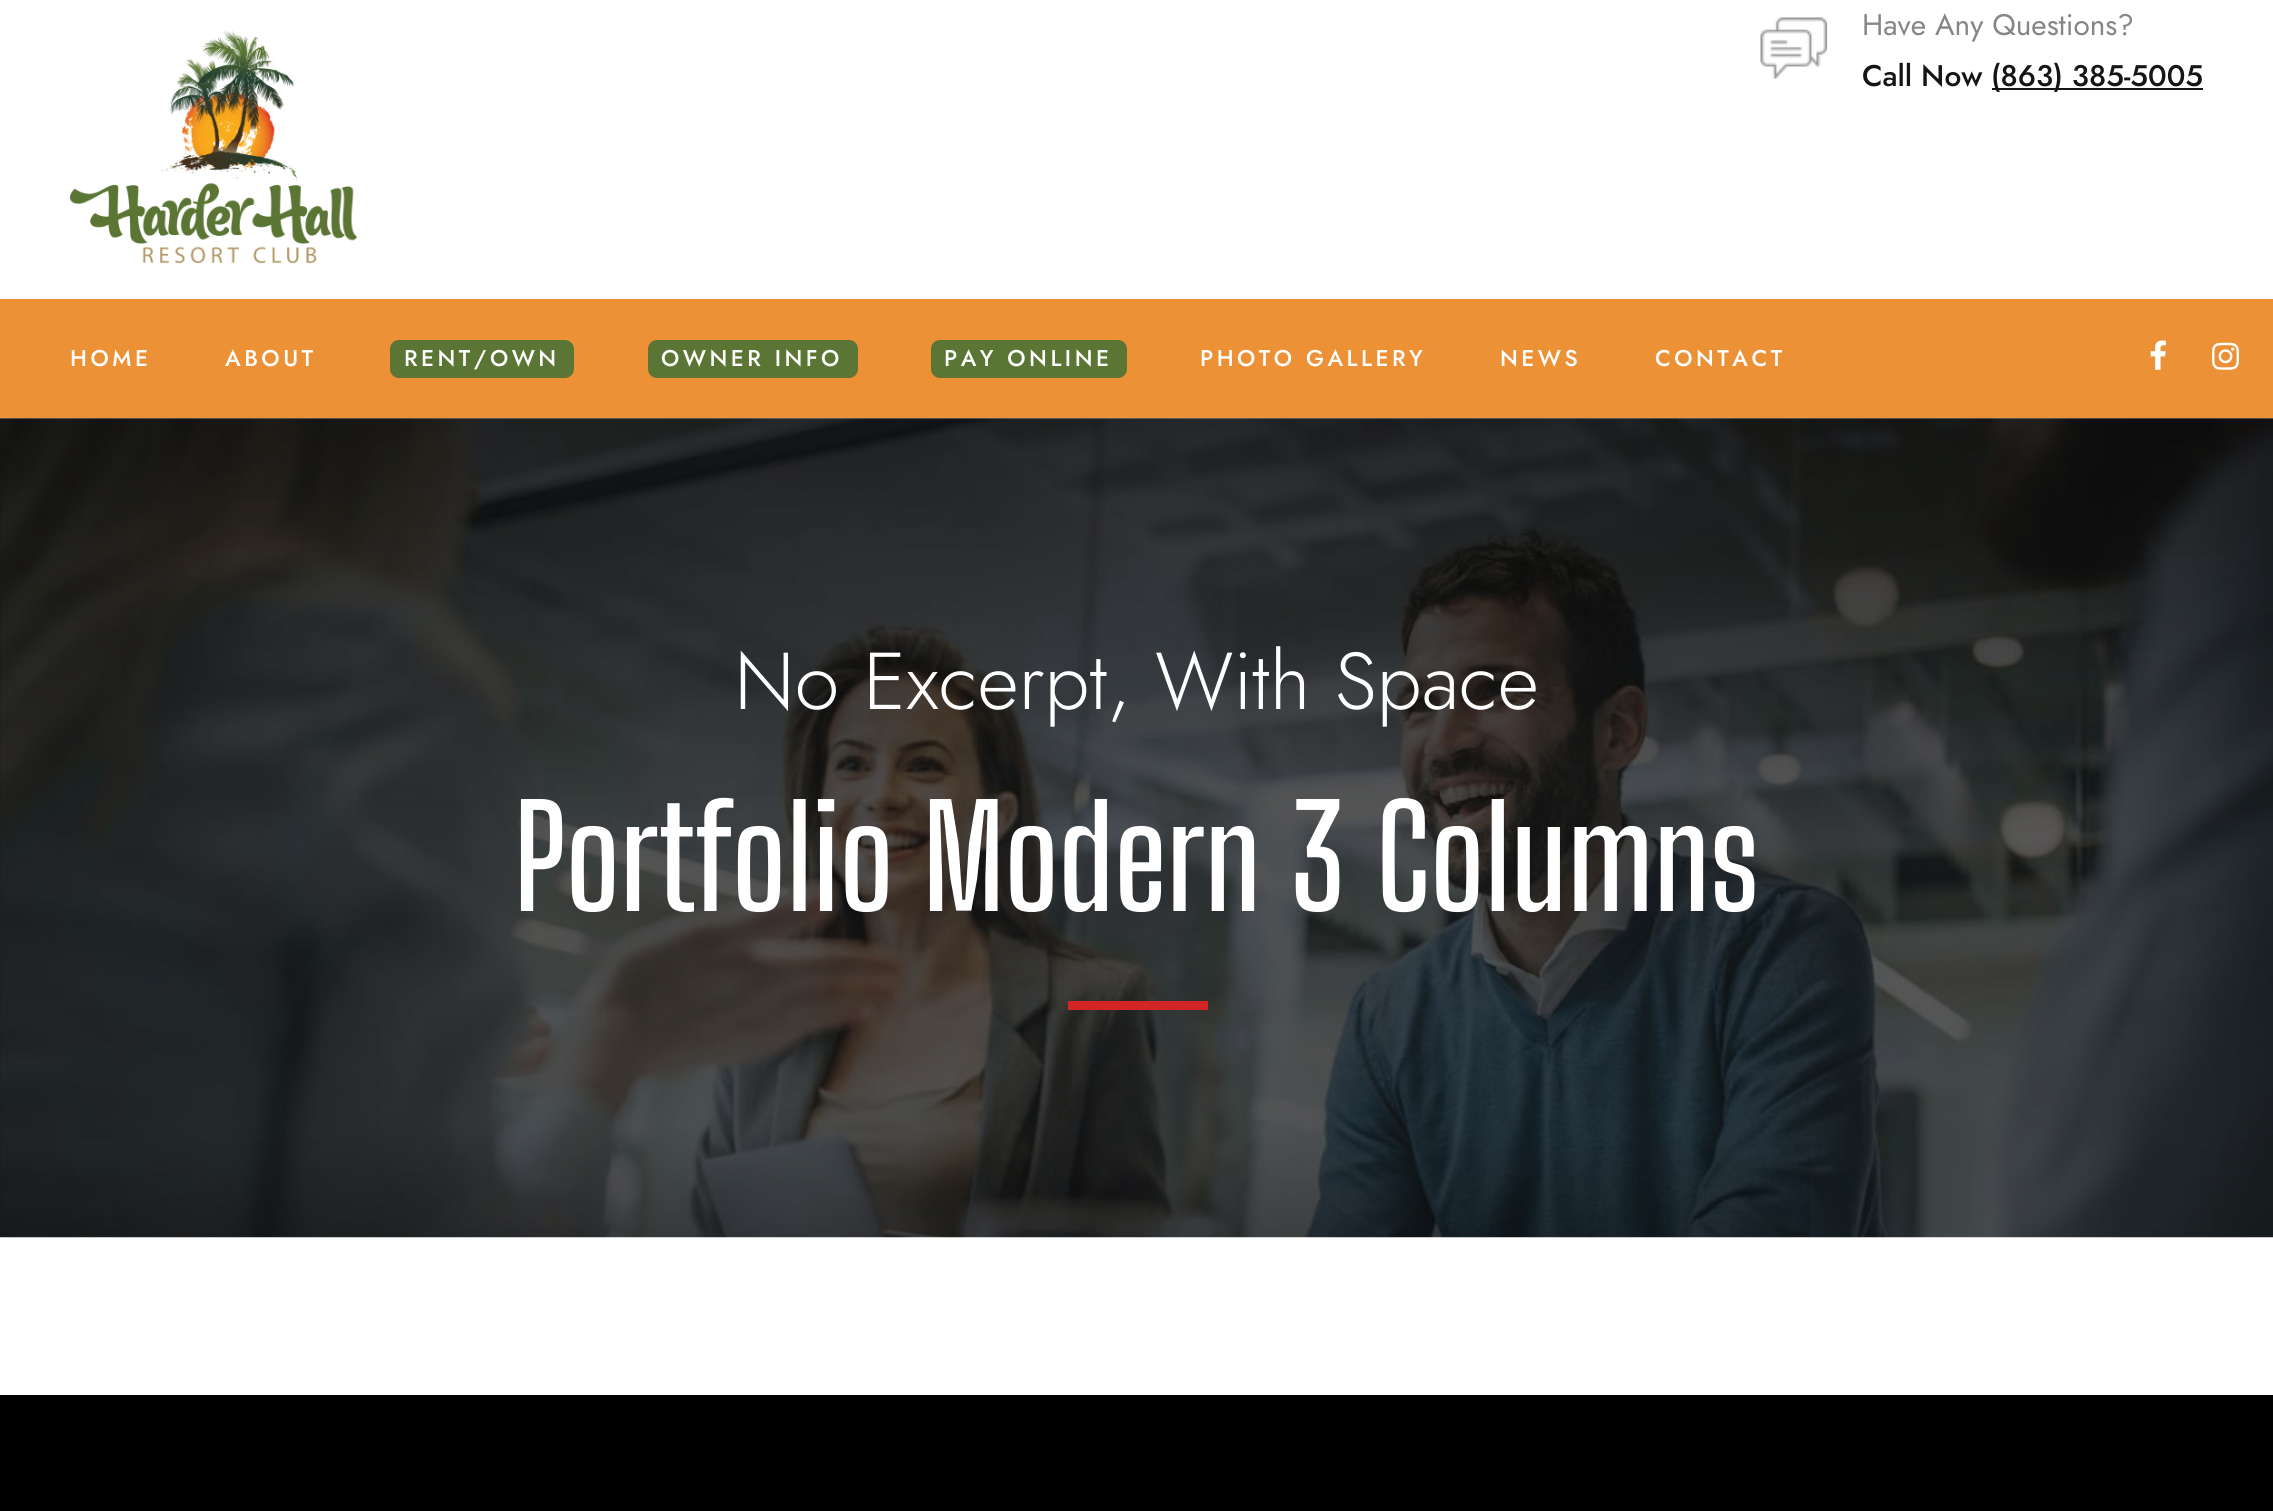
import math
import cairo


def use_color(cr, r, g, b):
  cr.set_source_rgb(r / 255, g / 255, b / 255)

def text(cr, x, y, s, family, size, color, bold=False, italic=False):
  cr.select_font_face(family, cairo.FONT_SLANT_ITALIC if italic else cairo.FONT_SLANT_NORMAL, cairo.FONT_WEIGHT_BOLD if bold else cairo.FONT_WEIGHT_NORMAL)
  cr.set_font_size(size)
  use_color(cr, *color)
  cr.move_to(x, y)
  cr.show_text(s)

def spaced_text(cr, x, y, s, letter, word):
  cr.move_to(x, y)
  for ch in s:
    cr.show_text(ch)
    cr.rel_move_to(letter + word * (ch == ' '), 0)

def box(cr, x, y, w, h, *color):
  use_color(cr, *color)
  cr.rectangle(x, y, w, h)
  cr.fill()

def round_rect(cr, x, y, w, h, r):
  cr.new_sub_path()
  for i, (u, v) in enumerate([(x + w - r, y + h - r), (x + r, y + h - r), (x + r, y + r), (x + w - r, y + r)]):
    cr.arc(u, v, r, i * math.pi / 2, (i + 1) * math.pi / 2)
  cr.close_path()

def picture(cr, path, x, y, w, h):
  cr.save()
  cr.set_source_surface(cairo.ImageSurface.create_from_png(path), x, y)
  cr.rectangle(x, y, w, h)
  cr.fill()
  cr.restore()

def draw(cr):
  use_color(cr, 255, 255, 255)
  cr.paint()
  picture(cr, "img_01.png", 70, 30, 287, 234)
  picture(cr, "img_02.png", 1760, 17, 67, 62)
  box(cr, 1992, 88, 211, 2, 21, 21, 21)
  box(cr, 0, 299, 2273, 119, 237, 145, 54)
  use_color(cr, 91, 118, 52)
  round_rect(cr, 390, 340, 184, 38, 9)
  cr.fill()
  round_rect(cr, 648, 340, 210, 38, 9)
  cr.fill()
  round_rect(cr, 931, 340, 196, 38, 9)
  cr.fill()
  picture(cr, "img_03.png", 2150, 340, 16, 30)
  picture(cr, "img_04.png", 2212, 342, 27, 28)
  picture(cr, "img_05.png", 0, 418, 2273, 820)
  box(cr, 1068, 1001, 140, 9, 211, 37, 37)
  box(cr, 0, 1395, 2273, 116, 0, 0, 0)
  text(cr, 1862, 35, "Have Any Questions?", "Jost", 29.75, (134, 134, 134))
  text(cr, 1862, 86, "Call Now", "Jost Medium", 29.75, (21, 21, 21))
  text(cr, 1991, 86, "(863) 385-5005", "Jost Medium", 29.75, (21, 21, 21))
  cr.set_font_size(22.75)
  use_color(cr, 255, 255, 255)
  spaced_text(cr, 70, 366, "HOME", 3.5, 0)
  spaced_text(cr, 225, 366, "ABOUT", 3.5, 0)
  spaced_text(cr, 404, 366, "RENT/OWN", 3.5, 0)
  spaced_text(cr, 661, 366, "OWNER INFO", 3.5, 0)
  spaced_text(cr, 944, 366, "PAY ONLINE", 3.5, 0)
  spaced_text(cr, 1200, 366, "PHOTO GALLERY", 3.5, 0)
  spaced_text(cr, 1500, 366, "NEWS", 3.5, 0)
  spaced_text(cr, 1655, 366, "CONTACT", 3.5, 0)
  text(cr, 734, 709, "No Excerpt, With Space", "Jost Light", 80.5, (255, 255, 255))
  text(cr, 514, 911, "Portfolio Modern 3 Columns", "Big Shoulders Display SemiBold", 140, (255, 255, 255))


surface = cairo.ImageSurface(cairo.FORMAT_RGB24, 2273, 1511)
cr = cairo.Context(surface)
options = cairo.FontOptions()
options.set_hint_metrics(cairo.HINT_METRICS_OFF)
options.set_hint_style(cairo.HINT_STYLE_NONE)
cr.set_font_options(options)
cr.set_miter_limit(4)
draw(cr)
surface.write_to_png("out.png")
